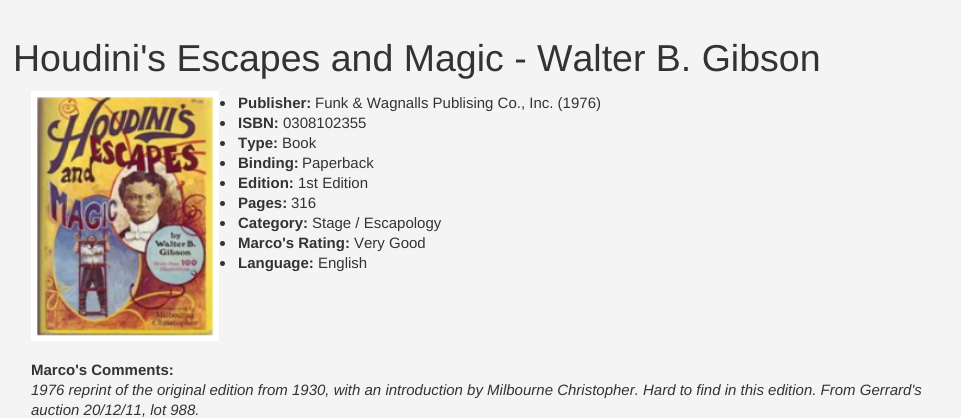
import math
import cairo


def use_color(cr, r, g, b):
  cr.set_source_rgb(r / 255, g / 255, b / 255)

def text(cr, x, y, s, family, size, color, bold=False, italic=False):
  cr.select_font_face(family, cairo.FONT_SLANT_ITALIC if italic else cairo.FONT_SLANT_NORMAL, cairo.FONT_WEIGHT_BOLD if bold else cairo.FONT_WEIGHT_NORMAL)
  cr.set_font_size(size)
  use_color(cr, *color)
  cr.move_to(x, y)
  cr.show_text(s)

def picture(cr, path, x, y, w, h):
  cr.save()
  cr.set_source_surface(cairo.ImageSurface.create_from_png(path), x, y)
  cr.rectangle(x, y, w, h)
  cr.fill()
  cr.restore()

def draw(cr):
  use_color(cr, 244, 244, 244)
  cr.paint()
  cr.rectangle(34, 94, 182, 244)
  use_color(cr, 255, 255, 255)
  cr.set_line_width(6)
  cr.stroke()
  picture(cr, "img_01.png", 37, 97, 177, 239)
  use_color(cr, 51, 51, 51)
  cr.arc(222.5, 103.5, 2.5, 0, 2 * math.pi)
  cr.fill()
  cr.arc(222.5, 123.5, 2.5, 0, 2 * math.pi)
  cr.fill()
  cr.arc(222.5, 143.5, 2.5, 0, 2 * math.pi)
  cr.fill()
  cr.arc(222.5, 163.5, 2.5, 0, 2 * math.pi)
  cr.fill()
  cr.arc(222.5, 183.5, 2.5, 0, 2 * math.pi)
  cr.fill()
  cr.arc(222.5, 203.5, 2.5, 0, 2 * math.pi)
  cr.fill()
  cr.arc(222.5, 223.5, 2.5, 0, 2 * math.pi)
  cr.fill()
  cr.arc(222.5, 243.5, 2.5, 0, 2 * math.pi)
  cr.fill()
  cr.arc(222.5, 263.5, 2.5, 0, 2 * math.pi)
  cr.fill()
  text(cr, 13, 71, "Houdini's Escapes and Magic - Walter B. Gibson", "Liberation Sans", 37.5, (51, 51, 51))
  text(cr, 238, 108, "Publisher:", "Liberation Sans", 15, (51, 51, 51), bold=True)
  text(cr, 315, 108, "Funk & Wagnalls Publising Co., Inc. (1976)", "Liberation Sans", 15, (51, 51, 51))
  text(cr, 238, 128, "ISBN:", "Liberation Sans", 15, (51, 51, 51), bold=True)
  text(cr, 283, 128, "0308102355", "Liberation Sans", 15, (51, 51, 51))
  text(cr, 238, 148, "Type:", "Liberation Sans", 15, (51, 51, 51), bold=True)
  text(cr, 282, 148, "Book", "Liberation Sans", 15, (51, 51, 51))
  text(cr, 238, 168, "Binding:", "Liberation Sans", 15, (51, 51, 51), bold=True)
  text(cr, 302, 168, "Paperback", "Liberation Sans", 15, (51, 51, 51))
  text(cr, 238, 188, "Edition:", "Liberation Sans", 15, (51, 51, 51), bold=True)
  text(cr, 298, 188, "1st Edition", "Liberation Sans", 15, (51, 51, 51))
  text(cr, 238, 208, "Pages:", "Liberation Sans", 15, (51, 51, 51), bold=True)
  text(cr, 291, 208, "316", "Liberation Sans", 15, (51, 51, 51))
  text(cr, 238, 228, "Category:", "Liberation Sans", 15, (51, 51, 51), bold=True)
  text(cr, 312, 228, "Stage / Escapology", "Liberation Sans", 15, (51, 51, 51))
  text(cr, 238, 248, "Marco's Rating:", "Liberation Sans", 15, (51, 51, 51), bold=True)
  text(cr, 354, 248, "Very Good", "Liberation Sans", 15, (51, 51, 51))
  text(cr, 238, 268, "Language:", "Liberation Sans", 15, (51, 51, 51), bold=True)
  text(cr, 318, 268, "English", "Liberation Sans", 15, (51, 51, 51))
  text(cr, 31, 375, "Marco's Comments:", "Liberation Sans", 15, (51, 51, 51), bold=True)
  text(cr, 31, 395, "1976 reprint of the original edition from 1930, with an introduction by Milbourne Christopher. Hard to find in this edition. From Gerrard's", "Liberation Sans", 15, (51, 51, 51), italic=True)
  text(cr, 31, 415, "auction 20/12/11, lot 988.", "Liberation Sans", 15, (51, 51, 51), italic=True)


surface = cairo.ImageSurface(cairo.FORMAT_RGB24, 961, 418)
cr = cairo.Context(surface)
options = cairo.FontOptions()
options.set_hint_metrics(cairo.HINT_METRICS_OFF)
options.set_hint_style(cairo.HINT_STYLE_NONE)
cr.set_font_options(options)
cr.set_miter_limit(4)
draw(cr)
surface.write_to_png("out.png")
